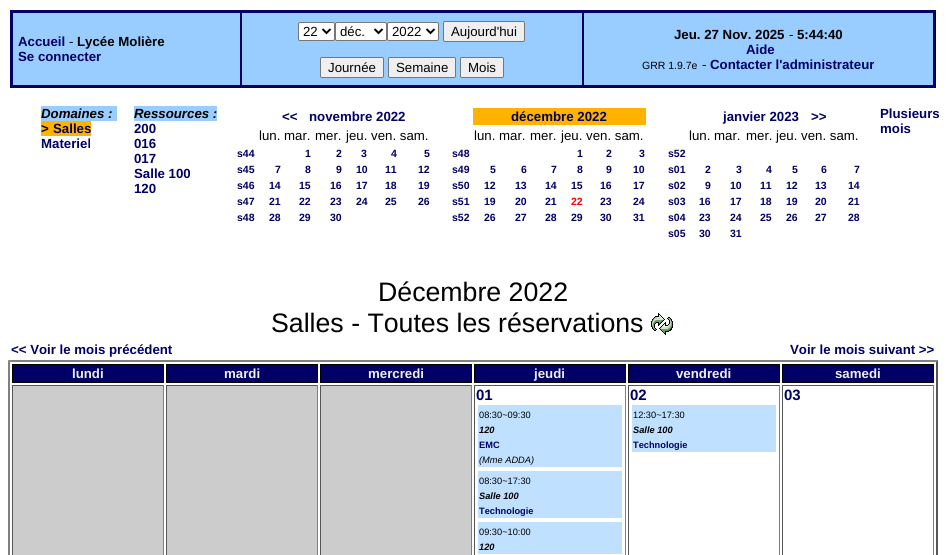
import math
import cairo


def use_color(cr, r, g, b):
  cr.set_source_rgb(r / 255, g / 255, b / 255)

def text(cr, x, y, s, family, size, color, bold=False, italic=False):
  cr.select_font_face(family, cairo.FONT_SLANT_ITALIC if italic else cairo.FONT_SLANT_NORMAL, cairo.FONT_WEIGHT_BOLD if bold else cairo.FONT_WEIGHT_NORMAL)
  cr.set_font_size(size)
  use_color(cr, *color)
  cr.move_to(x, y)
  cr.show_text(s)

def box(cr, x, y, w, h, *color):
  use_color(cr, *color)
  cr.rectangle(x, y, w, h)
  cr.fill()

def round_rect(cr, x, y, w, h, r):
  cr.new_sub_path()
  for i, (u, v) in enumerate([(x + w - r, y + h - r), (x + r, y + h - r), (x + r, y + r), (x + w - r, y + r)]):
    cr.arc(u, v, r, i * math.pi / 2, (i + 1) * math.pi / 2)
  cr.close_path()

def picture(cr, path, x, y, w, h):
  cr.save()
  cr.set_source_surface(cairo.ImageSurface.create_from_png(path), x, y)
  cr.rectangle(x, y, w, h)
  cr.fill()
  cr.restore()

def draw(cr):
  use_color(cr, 255, 255, 255)
  cr.paint()
  box(cr, 10, 10, 926, 78, 0, 0, 102)
  box(cr, 13, 13, 227, 72, 153, 204, 255)
  box(cr, 242, 13, 340, 72, 153, 204, 255)
  use_color(cr, 255, 255, 255)
  round_rect(cr, 298.5, 22.5, 36, 18, 1.5)
  cr.fill_preserve()
  use_color(cr, 118, 118, 118)
  cr.set_line_width(1)
  cr.stroke()
  cr.new_path()
  cr.move_to(322.5, 29)
  cr.line_to(326.5, 33)
  cr.line_to(330.5, 29)
  use_color(cr, 0, 0, 0)
  cr.set_line_width(2)
  cr.stroke()
  use_color(cr, 255, 255, 255)
  round_rect(cr, 335.5, 22.5, 51, 18, 1.5)
  cr.fill_preserve()
  use_color(cr, 118, 118, 118)
  cr.set_line_width(1)
  cr.stroke()
  cr.new_path()
  cr.move_to(374.5, 29)
  cr.line_to(378.5, 33)
  cr.line_to(382.5, 29)
  use_color(cr, 0, 0, 0)
  cr.set_line_width(2)
  cr.stroke()
  use_color(cr, 255, 255, 255)
  round_rect(cr, 387.5, 22.5, 51, 18, 1.5)
  cr.fill_preserve()
  use_color(cr, 118, 118, 118)
  cr.set_line_width(1)
  cr.stroke()
  cr.new_path()
  cr.move_to(426.5, 29)
  cr.line_to(430.5, 33)
  cr.line_to(434.5, 29)
  use_color(cr, 0, 0, 0)
  cr.set_line_width(2)
  cr.stroke()
  use_color(cr, 239, 239, 239)
  round_rect(cr, 443.5, 21.5, 81, 20, 1.5)
  cr.fill_preserve()
  use_color(cr, 118, 118, 118)
  cr.set_line_width(1)
  cr.stroke()
  use_color(cr, 239, 239, 239)
  round_rect(cr, 320.5, 57.5, 63, 20, 1.5)
  cr.fill_preserve()
  use_color(cr, 118, 118, 118)
  cr.stroke()
  use_color(cr, 239, 239, 239)
  round_rect(cr, 388.5, 57.5, 67, 20, 1.5)
  cr.fill_preserve()
  use_color(cr, 118, 118, 118)
  cr.stroke()
  use_color(cr, 239, 239, 239)
  round_rect(cr, 460.5, 57.5, 43, 20, 1.5)
  cr.fill_preserve()
  use_color(cr, 118, 118, 118)
  cr.stroke()
  box(cr, 584, 13, 349, 72, 153, 204, 255)
  box(cr, 41, 106, 76, 15, 153, 204, 255)
  box(cr, 41, 121, 50, 15, 255, 178, 0)
  box(cr, 134, 106, 83, 15, 153, 204, 255)
  box(cr, 473, 108, 173, 17, 255, 178, 0)
  picture(cr, "img_01.png", 651, 313, 22, 22)
  use_color(cr, 128, 128, 128)
  cr.new_path()
  cr.move_to(8, 360)
  cr.line_to(938, 360)
  cr.line_to(936, 362)
  cr.line_to(10, 362)
  cr.close_path()
  cr.fill()
  use_color(cr, 85, 85, 85)
  cr.new_path()
  cr.move_to(938, 360)
  cr.line_to(938, 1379)
  cr.line_to(936, 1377)
  cr.line_to(936, 362)
  cr.close_path()
  cr.fill()
  use_color(cr, 128, 128, 128)
  cr.new_path()
  cr.move_to(8, 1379)
  cr.line_to(8, 360)
  cr.line_to(10, 362)
  cr.line_to(10, 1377)
  cr.close_path()
  cr.fill()
  use_color(cr, 0, 0, 102)
  cr.rectangle(12.5, 364.5, 151, 18)
  cr.fill_preserve()
  use_color(cr, 0, 0, 0)
  cr.stroke()
  use_color(cr, 0, 0, 102)
  cr.rectangle(166.5, 364.5, 151, 18)
  cr.fill_preserve()
  use_color(cr, 0, 0, 0)
  cr.stroke()
  use_color(cr, 0, 0, 102)
  cr.rectangle(320.5, 364.5, 151, 18)
  cr.fill_preserve()
  use_color(cr, 0, 0, 0)
  cr.stroke()
  use_color(cr, 0, 0, 102)
  cr.rectangle(474.5, 364.5, 151, 18)
  cr.fill_preserve()
  use_color(cr, 0, 0, 0)
  cr.stroke()
  use_color(cr, 0, 0, 102)
  cr.rectangle(628.5, 364.5, 151, 18)
  cr.fill_preserve()
  use_color(cr, 0, 0, 0)
  cr.stroke()
  use_color(cr, 0, 0, 102)
  cr.rectangle(782.5, 364.5, 151, 18)
  cr.fill_preserve()
  use_color(cr, 0, 0, 0)
  cr.stroke()
  box(cr, 13, 386, 150, 169, 204, 204, 204)
  box(cr, 12, 385, 152, 1, 85, 85, 85)
  box(cr, 163, 385, 1, 170, 128, 128, 128)
  box(cr, 12, 385, 1, 170, 85, 85, 85)
  box(cr, 167, 386, 150, 169, 204, 204, 204)
  box(cr, 166, 385, 152, 1, 85, 85, 85)
  box(cr, 317, 385, 1, 170, 128, 128, 128)
  box(cr, 166, 385, 1, 170, 85, 85, 85)
  box(cr, 321, 386, 150, 169, 204, 204, 204)
  box(cr, 320, 385, 152, 1, 85, 85, 85)
  box(cr, 471, 385, 1, 170, 128, 128, 128)
  box(cr, 320, 385, 1, 170, 85, 85, 85)
  box(cr, 474, 385, 152, 1, 85, 85, 85)
  box(cr, 625, 385, 1, 170, 128, 128, 128)
  box(cr, 474, 385, 1, 170, 85, 85, 85)
  box(cr, 478, 405, 144, 62, 192, 224, 255)
  box(cr, 478, 471, 144, 47, 192, 224, 255)
  box(cr, 478, 522, 144, 32, 192, 224, 255)
  box(cr, 628, 385, 152, 1, 85, 85, 85)
  box(cr, 779, 385, 1, 170, 128, 128, 128)
  box(cr, 628, 385, 1, 170, 85, 85, 85)
  box(cr, 632, 405, 144, 47, 192, 224, 255)
  box(cr, 782, 385, 152, 1, 85, 85, 85)
  box(cr, 933, 385, 1, 170, 128, 128, 128)
  box(cr, 782, 385, 1, 170, 85, 85, 85)
  text(cr, 18, 46, "Accueil", "Liberation Sans", 13.25, (0, 0, 102), bold=True)
  text(cr, 69, 46, "-", "Liberation Sans", 13.25, (0, 0, 0))
  text(cr, 77, 46, "Lycée Molière", "Liberation Sans", 13.25, (0, 0, 0), bold=True)
  text(cr, 18, 61, "Se connecter", "Liberation Sans", 13.25, (0, 0, 102), bold=True)
  text(cr, 303, 36, "22", "Liberation Sans", 13.25, (0, 0, 0))
  text(cr, 340, 36, "déc.", "Liberation Sans", 13.25, (0, 0, 0))
  text(cr, 392, 36, "2022", "Liberation Sans", 13.25, (0, 0, 0))
  text(cr, 451, 36, "Aujourd'hui", "Liberation Sans", 13.25, (0, 0, 0))
  text(cr, 328, 72, "Journée", "Liberation Sans", 13.25, (0, 0, 0))
  text(cr, 396, 72, "Semaine", "Liberation Sans", 13.25, (0, 0, 0))
  text(cr, 468, 72, "Mois", "Liberation Sans", 13.25, (0, 0, 0))
  text(cr, 674, 39, "Jeu. 27 Nov. 2025", "Liberation Sans", 13.25, (0, 0, 0), bold=True)
  text(cr, 789, 39, "-", "Liberation Sans", 13.25, (0, 0, 0))
  text(cr, 797, 39, "5:44:40", "Liberation Sans", 13.25, (0, 0, 0), bold=True)
  text(cr, 746, 54, "Aide", "Liberation Sans", 13.25, (0, 0, 102), bold=True)
  text(cr, 642, 69, "GRR 1.9.7e", "Liberation Sans", 10.5, (0, 0, 0))
  text(cr, 702, 69, "-", "Liberation Sans", 13.25, (0, 0, 0))
  text(cr, 710, 69, "Contacter l'administrateur", "Liberation Sans", 13.25, (0, 0, 102), bold=True)
  text(cr, 41, 118, "Domaines :", "Liberation Sans", 13.25, (0, 0, 0), bold=True, italic=True)
  text(cr, 41, 133, ">", "Liberation Sans", 13.25, (0, 0, 0), bold=True)
  text(cr, 53, 133, "Salles", "Liberation Sans", 13.25, (0, 0, 102), bold=True)
  text(cr, 41, 148, "Materiel", "Liberation Sans", 13.25, (0, 0, 102), bold=True)
  text(cr, 134, 118, "Ressources :", "Liberation Sans", 13.25, (0, 0, 0), bold=True, italic=True)
  text(cr, 134, 133, "200", "Liberation Sans", 13.25, (0, 0, 102), bold=True)
  text(cr, 134, 148, "016", "Liberation Sans", 13.25, (0, 0, 102), bold=True)
  text(cr, 134, 163, "017", "Liberation Sans", 13.25, (0, 0, 102), bold=True)
  text(cr, 134, 178, "Salle 100", "Liberation Sans", 13.25, (0, 0, 102), bold=True)
  text(cr, 134, 193, "120", "Liberation Sans", 13.25, (0, 0, 102), bold=True)
  text(cr, 282, 121, "<<", "Liberation Sans", 13.25, (0, 0, 102), bold=True)
  text(cr, 309, 121, "novembre 2022", "Liberation Sans", 13.25, (0, 0, 102), bold=True)
  text(cr, 259, 140, "lun. mar.", "Liberation Sans", 13.25, (0, 0, 0))
  text(cr, 315, 140, "mer.", "Liberation Sans", 13.25, (0, 0, 0))
  text(cr, 346, 140, "jeu. ven. sam.", "Liberation Sans", 13.25, (0, 0, 0))
  text(cr, 237, 157, "s44", "Liberation Sans", 10.5, (0, 0, 102), bold=True)
  text(cr, 305, 157, "1", "Liberation Sans", 10.5, (0, 0, 102), bold=True)
  text(cr, 336, 157, "2", "Liberation Sans", 10.5, (0, 0, 102), bold=True)
  text(cr, 361, 157, "3", "Liberation Sans", 10.5, (0, 0, 102), bold=True)
  text(cr, 391, 157, "4", "Liberation Sans", 10.5, (0, 0, 102), bold=True)
  text(cr, 424, 157, "5", "Liberation Sans", 10.5, (0, 0, 102), bold=True)
  text(cr, 237, 173, "s45", "Liberation Sans", 10.5, (0, 0, 102), bold=True)
  text(cr, 275, 173, "7", "Liberation Sans", 10.5, (0, 0, 102), bold=True)
  text(cr, 305, 173, "8", "Liberation Sans", 10.5, (0, 0, 102), bold=True)
  text(cr, 336, 173, "9", "Liberation Sans", 10.5, (0, 0, 102), bold=True)
  text(cr, 356, 173, "10", "Liberation Sans", 10.5, (0, 0, 102), bold=True)
  text(cr, 385, 173, "11", "Liberation Sans", 10.5, (0, 0, 102), bold=True)
  text(cr, 418, 173, "12", "Liberation Sans", 10.5, (0, 0, 102), bold=True)
  text(cr, 237, 189, "s46", "Liberation Sans", 10.5, (0, 0, 102), bold=True)
  text(cr, 269, 189, "14", "Liberation Sans", 10.5, (0, 0, 102), bold=True)
  text(cr, 299, 189, "15", "Liberation Sans", 10.5, (0, 0, 102), bold=True)
  text(cr, 330, 189, "16", "Liberation Sans", 10.5, (0, 0, 102), bold=True)
  text(cr, 356, 189, "17", "Liberation Sans", 10.5, (0, 0, 102), bold=True)
  text(cr, 385, 189, "18", "Liberation Sans", 10.5, (0, 0, 102), bold=True)
  text(cr, 418, 189, "19", "Liberation Sans", 10.5, (0, 0, 102), bold=True)
  text(cr, 237, 205, "s47", "Liberation Sans", 10.5, (0, 0, 102), bold=True)
  text(cr, 269, 205, "21", "Liberation Sans", 10.5, (0, 0, 102), bold=True)
  text(cr, 299, 205, "22", "Liberation Sans", 10.5, (0, 0, 102), bold=True)
  text(cr, 330, 205, "23", "Liberation Sans", 10.5, (0, 0, 102), bold=True)
  text(cr, 356, 205, "24", "Liberation Sans", 10.5, (0, 0, 102), bold=True)
  text(cr, 385, 205, "25", "Liberation Sans", 10.5, (0, 0, 102), bold=True)
  text(cr, 418, 205, "26", "Liberation Sans", 10.5, (0, 0, 102), bold=True)
  text(cr, 237, 221, "s48", "Liberation Sans", 10.5, (0, 0, 102), bold=True)
  text(cr, 269, 221, "28", "Liberation Sans", 10.5, (0, 0, 102), bold=True)
  text(cr, 299, 221, "29", "Liberation Sans", 10.5, (0, 0, 102), bold=True)
  text(cr, 330, 221, "30", "Liberation Sans", 10.5, (0, 0, 102), bold=True)
  text(cr, 511, 121, "décembre 2022", "Liberation Sans", 13.25, (0, 0, 102), bold=True)
  text(cr, 474, 140, "lun. mar.", "Liberation Sans", 13.25, (0, 0, 0))
  text(cr, 530, 140, "mer.", "Liberation Sans", 13.25, (0, 0, 0))
  text(cr, 561, 140, "jeu. ven. sam.", "Liberation Sans", 13.25, (0, 0, 0))
  text(cr, 452, 157, "s48", "Liberation Sans", 10.5, (0, 0, 102), bold=True)
  text(cr, 577, 157, "1", "Liberation Sans", 10.5, (0, 0, 102), bold=True)
  text(cr, 606, 157, "2", "Liberation Sans", 10.5, (0, 0, 102), bold=True)
  text(cr, 639, 157, "3", "Liberation Sans", 10.5, (0, 0, 102), bold=True)
  text(cr, 452, 173, "s49", "Liberation Sans", 10.5, (0, 0, 102), bold=True)
  text(cr, 490, 173, "5", "Liberation Sans", 10.5, (0, 0, 102), bold=True)
  text(cr, 521, 173, "6", "Liberation Sans", 10.5, (0, 0, 102), bold=True)
  text(cr, 551, 173, "7", "Liberation Sans", 10.5, (0, 0, 102), bold=True)
  text(cr, 577, 173, "8", "Liberation Sans", 10.5, (0, 0, 102), bold=True)
  text(cr, 606, 173, "9", "Liberation Sans", 10.5, (0, 0, 102), bold=True)
  text(cr, 633, 173, "10", "Liberation Sans", 10.5, (0, 0, 102), bold=True)
  text(cr, 452, 189, "s50", "Liberation Sans", 10.5, (0, 0, 102), bold=True)
  text(cr, 484, 189, "12", "Liberation Sans", 10.5, (0, 0, 102), bold=True)
  text(cr, 515, 189, "13", "Liberation Sans", 10.5, (0, 0, 102), bold=True)
  text(cr, 545, 189, "14", "Liberation Sans", 10.5, (0, 0, 102), bold=True)
  text(cr, 571, 189, "15", "Liberation Sans", 10.5, (0, 0, 102), bold=True)
  text(cr, 600, 189, "16", "Liberation Sans", 10.5, (0, 0, 102), bold=True)
  text(cr, 633, 189, "17", "Liberation Sans", 10.5, (0, 0, 102), bold=True)
  text(cr, 452, 205, "s51", "Liberation Sans", 10.5, (0, 0, 102), bold=True)
  text(cr, 484, 205, "19", "Liberation Sans", 10.5, (0, 0, 102), bold=True)
  text(cr, 515, 205, "20", "Liberation Sans", 10.5, (0, 0, 102), bold=True)
  text(cr, 545, 205, "21", "Liberation Sans", 10.5, (0, 0, 102), bold=True)
  text(cr, 571, 205, "22", "Liberation Sans", 10.5, (255, 0, 0), bold=True)
  text(cr, 600, 205, "23", "Liberation Sans", 10.5, (0, 0, 102), bold=True)
  text(cr, 633, 205, "24", "Liberation Sans", 10.5, (0, 0, 102), bold=True)
  text(cr, 452, 221, "s52", "Liberation Sans", 10.5, (0, 0, 102), bold=True)
  text(cr, 484, 221, "26", "Liberation Sans", 10.5, (0, 0, 102), bold=True)
  text(cr, 515, 221, "27", "Liberation Sans", 10.5, (0, 0, 102), bold=True)
  text(cr, 545, 221, "28", "Liberation Sans", 10.5, (0, 0, 102), bold=True)
  text(cr, 571, 221, "29", "Liberation Sans", 10.5, (0, 0, 102), bold=True)
  text(cr, 600, 221, "30", "Liberation Sans", 10.5, (0, 0, 102), bold=True)
  text(cr, 633, 221, "31", "Liberation Sans", 10.5, (0, 0, 102), bold=True)
  text(cr, 723, 121, "janvier 2023", "Liberation Sans", 13.25, (0, 0, 102), bold=True)
  text(cr, 811, 121, ">>", "Liberation Sans", 13.25, (0, 0, 102), bold=True)
  text(cr, 689, 140, "lun. mar.", "Liberation Sans", 13.25, (0, 0, 0))
  text(cr, 746, 140, "mer.", "Liberation Sans", 13.25, (0, 0, 0))
  text(cr, 776, 140, "jeu. ven. sam.", "Liberation Sans", 13.25, (0, 0, 0))
  text(cr, 668, 157, "s52", "Liberation Sans", 10.5, (0, 0, 102), bold=True)
  text(cr, 668, 173, "s01", "Liberation Sans", 10.5, (0, 0, 102), bold=True)
  text(cr, 705, 173, "2", "Liberation Sans", 10.5, (0, 0, 102), bold=True)
  text(cr, 736, 173, "3", "Liberation Sans", 10.5, (0, 0, 102), bold=True)
  text(cr, 766, 173, "4", "Liberation Sans", 10.5, (0, 0, 102), bold=True)
  text(cr, 792, 173, "5", "Liberation Sans", 10.5, (0, 0, 102), bold=True)
  text(cr, 821, 173, "6", "Liberation Sans", 10.5, (0, 0, 102), bold=True)
  text(cr, 854, 173, "7", "Liberation Sans", 10.5, (0, 0, 102), bold=True)
  text(cr, 668, 189, "s02", "Liberation Sans", 10.5, (0, 0, 102), bold=True)
  text(cr, 705, 189, "9", "Liberation Sans", 10.5, (0, 0, 102), bold=True)
  text(cr, 730, 189, "10", "Liberation Sans", 10.5, (0, 0, 102), bold=True)
  text(cr, 760, 189, "11", "Liberation Sans", 10.5, (0, 0, 102), bold=True)
  text(cr, 786, 189, "12", "Liberation Sans", 10.5, (0, 0, 102), bold=True)
  text(cr, 815, 189, "13", "Liberation Sans", 10.5, (0, 0, 102), bold=True)
  text(cr, 848, 189, "14", "Liberation Sans", 10.5, (0, 0, 102), bold=True)
  text(cr, 668, 205, "s03", "Liberation Sans", 10.5, (0, 0, 102), bold=True)
  text(cr, 699, 205, "16", "Liberation Sans", 10.5, (0, 0, 102), bold=True)
  text(cr, 730, 205, "17", "Liberation Sans", 10.5, (0, 0, 102), bold=True)
  text(cr, 760, 205, "18", "Liberation Sans", 10.5, (0, 0, 102), bold=True)
  text(cr, 786, 205, "19", "Liberation Sans", 10.5, (0, 0, 102), bold=True)
  text(cr, 815, 205, "20", "Liberation Sans", 10.5, (0, 0, 102), bold=True)
  text(cr, 848, 205, "21", "Liberation Sans", 10.5, (0, 0, 102), bold=True)
  text(cr, 668, 221, "s04", "Liberation Sans", 10.5, (0, 0, 102), bold=True)
  text(cr, 699, 221, "23", "Liberation Sans", 10.5, (0, 0, 102), bold=True)
  text(cr, 730, 221, "24", "Liberation Sans", 10.5, (0, 0, 102), bold=True)
  text(cr, 760, 221, "25", "Liberation Sans", 10.5, (0, 0, 102), bold=True)
  text(cr, 786, 221, "26", "Liberation Sans", 10.5, (0, 0, 102), bold=True)
  text(cr, 815, 221, "27", "Liberation Sans", 10.5, (0, 0, 102), bold=True)
  text(cr, 848, 221, "28", "Liberation Sans", 10.5, (0, 0, 102), bold=True)
  text(cr, 668, 237, "s05", "Liberation Sans", 10.5, (0, 0, 102), bold=True)
  text(cr, 699, 237, "30", "Liberation Sans", 10.5, (0, 0, 102), bold=True)
  text(cr, 730, 237, "31", "Liberation Sans", 10.5, (0, 0, 102), bold=True)
  text(cr, 880, 118, "Plusieurs", "Liberation Sans", 13.25, (0, 0, 102), bold=True)
  text(cr, 880, 133, "mois", "Liberation Sans", 13.25, (0, 0, 102), bold=True)
  text(cr, 378, 301, "Décembre 2022", "Liberation Sans", 26.7, (0, 0, 0))
  text(cr, 271, 332, "Salles - Toutes les réservations", "Liberation Sans", 26.7, (0, 0, 0))
  text(cr, 11, 354, "<< Voir le mois précédent", "Liberation Sans", 13.25, (0, 0, 102), bold=True)
  text(cr, 790, 354, "Voir le mois suivant >>", "Liberation Sans", 13.25, (0, 0, 102), bold=True)
  text(cr, 72, 378, "lundi", "Liberation Sans", 13.25, (238, 238, 238), bold=True)
  text(cr, 224, 378, "mardi", "Liberation Sans", 13.25, (238, 238, 238), bold=True)
  text(cr, 368, 378, "mercredi", "Liberation Sans", 13.25, (238, 238, 238), bold=True)
  text(cr, 534, 378, "jeudi", "Liberation Sans", 13.25, (238, 238, 238), bold=True)
  text(cr, 676, 378, "vendredi", "Liberation Sans", 13.25, (238, 238, 238), bold=True)
  text(cr, 835, 378, "samedi", "Liberation Sans", 13.25, (238, 238, 238), bold=True)
  text(cr, 476, 400, "01", "Liberation Sans", 15, (0, 0, 102), bold=True)
  text(cr, 479, 418, "08:30~09:30", "Liberation Sans", 9.25, (0, 0, 0))
  text(cr, 479, 433, "120", "Liberation Sans", 9.25, (0, 0, 0), bold=True, italic=True)
  text(cr, 479, 448, "EMC", "Liberation Sans", 9.25, (0, 0, 102), bold=True)
  text(cr, 479, 463, "(Mme ADDA)", "Liberation Sans", 9.25, (0, 0, 0), italic=True)
  text(cr, 479, 484, "08:30~17:30", "Liberation Sans", 9.25, (0, 0, 0))
  text(cr, 479, 499, "Salle 100", "Liberation Sans", 9.25, (0, 0, 0), bold=True, italic=True)
  text(cr, 479, 514, "Technologie", "Liberation Sans", 9.25, (0, 0, 102), bold=True)
  text(cr, 479, 535, "09:30~10:00", "Liberation Sans", 9.25, (0, 0, 0))
  text(cr, 479, 550, "120", "Liberation Sans", 9.25, (0, 0, 0), bold=True, italic=True)
  text(cr, 630, 400, "02", "Liberation Sans", 15, (0, 0, 102), bold=True)
  text(cr, 633, 418, "12:30~17:30", "Liberation Sans", 9.25, (0, 0, 0))
  text(cr, 633, 433, "Salle 100", "Liberation Sans", 9.25, (0, 0, 0), bold=True, italic=True)
  text(cr, 633, 448, "Technologie", "Liberation Sans", 9.25, (0, 0, 102), bold=True)
  text(cr, 784, 400, "03", "Liberation Sans", 15, (0, 0, 102), bold=True)


surface = cairo.ImageSurface(cairo.FORMAT_RGB24, 946, 555)
cr = cairo.Context(surface)
options = cairo.FontOptions()
options.set_hint_metrics(cairo.HINT_METRICS_OFF)
options.set_hint_style(cairo.HINT_STYLE_NONE)
cr.set_font_options(options)
cr.set_miter_limit(4)
draw(cr)
surface.write_to_png("out.png")
